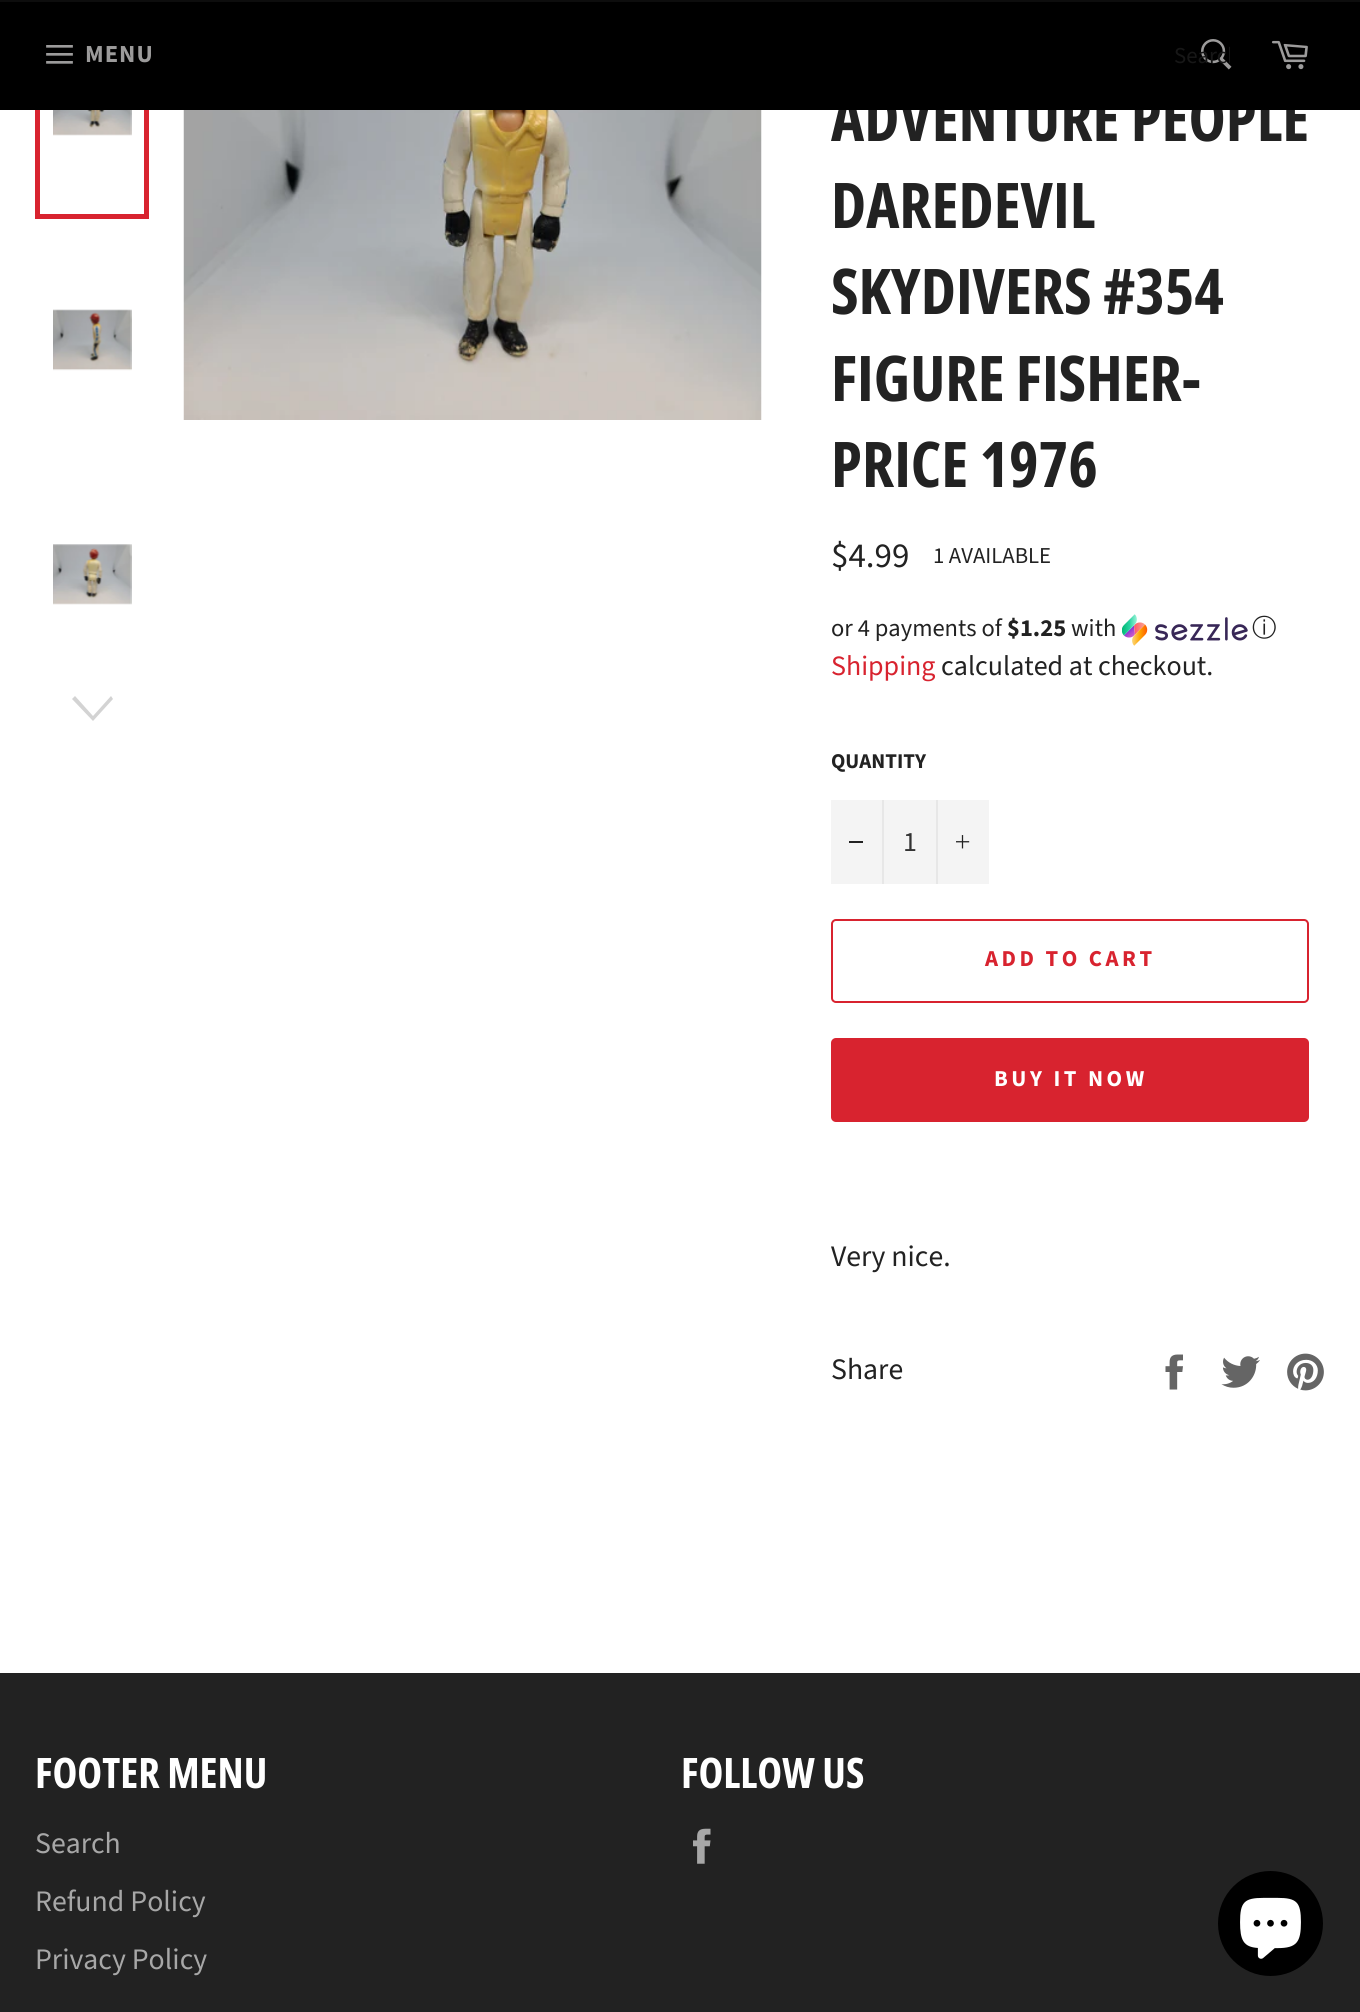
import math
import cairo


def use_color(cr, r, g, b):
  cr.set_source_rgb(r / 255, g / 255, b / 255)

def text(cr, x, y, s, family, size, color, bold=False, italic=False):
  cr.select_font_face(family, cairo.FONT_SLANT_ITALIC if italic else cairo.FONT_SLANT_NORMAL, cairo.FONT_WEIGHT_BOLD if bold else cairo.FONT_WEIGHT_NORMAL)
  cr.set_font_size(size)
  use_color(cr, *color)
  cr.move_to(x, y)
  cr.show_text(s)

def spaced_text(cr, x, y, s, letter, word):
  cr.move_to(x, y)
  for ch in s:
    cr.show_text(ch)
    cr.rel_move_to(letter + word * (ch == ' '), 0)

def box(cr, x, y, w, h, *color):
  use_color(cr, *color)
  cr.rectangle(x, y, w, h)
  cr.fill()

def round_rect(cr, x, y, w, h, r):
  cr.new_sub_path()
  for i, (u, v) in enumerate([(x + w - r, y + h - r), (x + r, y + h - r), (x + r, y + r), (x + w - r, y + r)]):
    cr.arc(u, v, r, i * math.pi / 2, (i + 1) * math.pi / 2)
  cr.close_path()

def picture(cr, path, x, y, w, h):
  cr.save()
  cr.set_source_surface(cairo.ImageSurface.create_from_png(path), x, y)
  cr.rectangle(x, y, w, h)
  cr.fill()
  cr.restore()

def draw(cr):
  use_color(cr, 255, 255, 255)
  cr.paint()
  picture(cr, "img_04.png", 53, 110, 79, 26)
  cr.rectangle(37.5, -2.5, 109, 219)
  use_color(cr, 216, 35, 47)
  cr.set_line_width(5)
  cr.stroke()
  box(cr, 0, 0, 1360, 2, 13, 13, 13)
  picture(cr, "img_05.png", 53, 309, 79, 62)
  picture(cr, "img_06.png", 53, 544, 79, 61)
  use_color(cr, 211, 211, 211)
  cr.new_path()
  cr.move_to(111, 696)
  cr.line_to(113, 699)
  cr.line_to(93, 721)
  cr.line_to(72, 699)
  cr.line_to(75, 696)
  cr.line_to(93, 716)
  cr.close_path()
  cr.fill()
  picture(cr, "img_07.png", 183, 110, 579, 310)
  picture(cr, "img_08.png", 1122, 614, 126, 32)
  box(cr, 831, 800, 158, 84, 244, 244, 244)
  box(cr, 882, 800, 2, 84, 231, 231, 231)
  box(cr, 849, 841, 14, 2, 34, 34, 34)
  box(cr, 936, 800, 2, 84, 231, 231, 231)
  picture(cr, "img_09.png", 956, 835, 14, 14)
  round_rect(cr, 832, 920, 476, 82, 4)
  use_color(cr, 216, 35, 47)
  cr.set_line_width(2)
  cr.stroke()
  round_rect(cr, 831, 1038, 478, 84, 5)
  cr.fill()
  picture(cr, "img_10.png", 1165, 1354, 18, 36)
  picture(cr, "img_11.png", 1221, 1356, 39, 32)
  picture(cr, "img_12.png", 1287, 1353, 37, 38)
  box(cr, 0, 1673, 1360, 339, 34, 34, 34)
  picture(cr, "img_13.png", 693, 1828, 18, 36)
  use_color(cr, 0, 0, 0)
  cr.arc(1270.5, 1923.5, 52.5, 0, 2 * math.pi)
  cr.fill()
  picture(cr, "img_14.png", 1240, 1897, 61, 62)
  text(cr, 831, 141, "ADVENTURE PEOPLE", "Open Sans Condensed", 63, (34, 34, 34), bold=True)
  box(cr, 0, 2, 1360, 108, 0, 0, 0)
  picture(cr, "img_02.png", 1201, 39, 31, 31)
  cr.save()
  cr.rectangle(1174, 40, 56, 32)
  cr.clip()
  text(cr, 1174, 63, "Search", "Source Sans Pro", 22.75, (23, 23, 23))
  cr.restore()
  picture(cr, "img_03.png", 1271, 40, 37, 30)
  picture(cr, "img_01.png", 46, 45, 27, 19)
  cr.select_font_face("Source Sans Pro", cairo.FONT_SLANT_NORMAL, cairo.FONT_WEIGHT_BOLD)
  cr.set_font_size(24.5)
  use_color(cr, 156, 155, 155)
  spaced_text(cr, 85, 62, "MENU", 1, 0)
  text(cr, 831, 228, "DAREDEVIL", "Open Sans Condensed", 63, (34, 34, 34), bold=True)
  text(cr, 831, 314, "SKYDIVERS #354", "Open Sans Condensed", 63, (34, 34, 34), bold=True)
  text(cr, 831, 401, "FIGURE FISHER-", "Open Sans Condensed", 63, (34, 34, 34), bold=True)
  text(cr, 831, 487, "PRICE 1976", "Open Sans Condensed", 63, (34, 34, 34), bold=True)
  text(cr, 831, 567, "$4.99", "Source Sans Pro", 35, (34, 34, 34))
  text(cr, 933, 563, "1 AVAILABLE", "Source Sans Pro", 22.75, (34, 34, 34))
  text(cr, 831, 636, "or 4 payments of", "Source Sans Pro", 24.5, (34, 34, 34))
  text(cr, 1007, 636, "$1.25", "Source Sans Pro", 24.5, (34, 34, 34), bold=True)
  text(cr, 1071, 636, "with", "Source Sans Pro", 24.5, (34, 34, 34))
  text(cr, 1252, 636, "ⓘ", "WenQuanYi Zen Hei Medium", 24.5, (34, 34, 34))
  text(cr, 831, 675, "Shipping", "Source Sans Pro", 28, (216, 35, 47))
  text(cr, 941, 675, "calculated at checkout.", "Source Sans Pro", 28, (34, 34, 34))
  text(cr, 831, 768, "QUANTITY", "Source Sans Pro", 21, (34, 34, 34), bold=True)
  text(cr, 903, 851, "1", "Source Sans Pro", 28, (51, 51, 51))
  cr.select_font_face("Source Sans Pro", cairo.FONT_SLANT_NORMAL, cairo.FONT_WEIGHT_BOLD)
  cr.set_font_size(22.75)
  use_color(cr, 216, 35, 47)
  spaced_text(cr, 985, 966, "ADD TO CART", 3.5, 0)
  use_color(cr, 255, 255, 255)
  spaced_text(cr, 994, 1086, "BUY IT NOW", 3.5, 0)
  text(cr, 831, 1266, "Very nice.", "Source Sans Pro", 29.75, (34, 34, 34))
  text(cr, 831, 1379, "Share", "Source Sans Pro", 29.75, (34, 34, 34))
  text(cr, 35, 1788, "FOOTER MENU", "Open Sans Condensed", 42, (255, 255, 255), bold=True)
  text(cr, 35, 1853, "Search", "Source Sans Pro", 29.75, (167, 167, 167))
  text(cr, 35, 1911, "Refund Policy", "Source Sans Pro", 29.75, (167, 167, 167))
  text(cr, 35, 1969, "Privacy Policy", "Source Sans Pro", 29.75, (167, 167, 167))
  text(cr, 681, 1788, "FOLLOW US", "Open Sans Condensed", 42, (255, 255, 255), bold=True)


surface = cairo.ImageSurface(cairo.FORMAT_RGB24, 1360, 2012)
cr = cairo.Context(surface)
options = cairo.FontOptions()
options.set_hint_metrics(cairo.HINT_METRICS_OFF)
options.set_hint_style(cairo.HINT_STYLE_NONE)
cr.set_font_options(options)
cr.set_miter_limit(4)
draw(cr)
surface.write_to_png("out.png")
